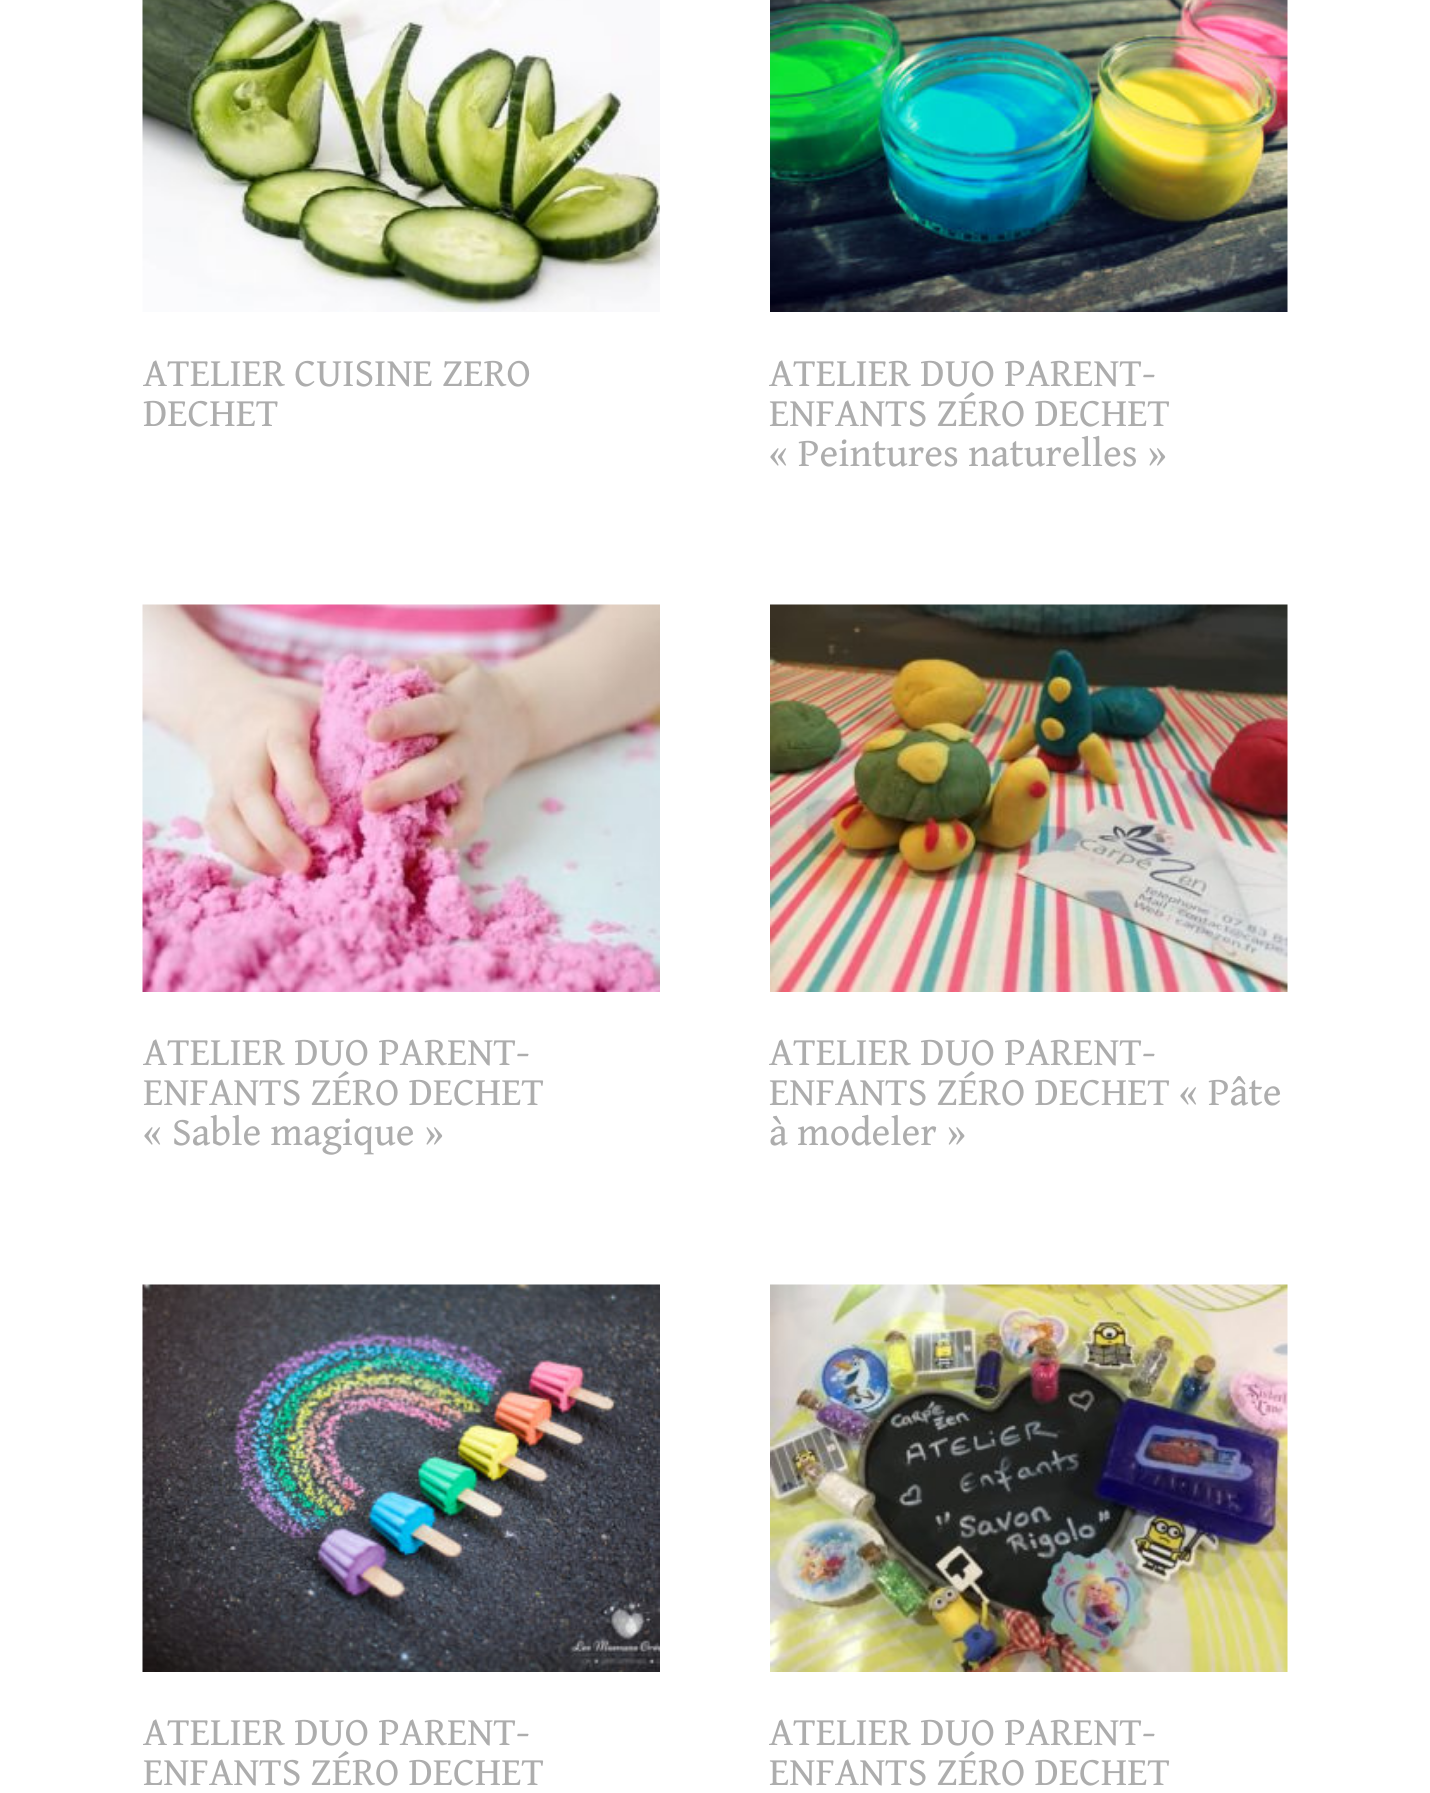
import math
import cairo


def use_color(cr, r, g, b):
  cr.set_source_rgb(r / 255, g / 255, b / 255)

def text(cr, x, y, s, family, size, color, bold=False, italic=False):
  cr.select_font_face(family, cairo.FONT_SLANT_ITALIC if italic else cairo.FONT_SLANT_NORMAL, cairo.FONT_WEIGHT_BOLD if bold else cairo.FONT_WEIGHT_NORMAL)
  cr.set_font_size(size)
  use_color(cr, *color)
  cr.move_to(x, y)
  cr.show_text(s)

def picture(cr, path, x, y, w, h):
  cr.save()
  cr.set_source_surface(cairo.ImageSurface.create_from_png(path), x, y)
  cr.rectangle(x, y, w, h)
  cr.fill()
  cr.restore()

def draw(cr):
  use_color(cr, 255, 255, 255)
  cr.paint()
  picture(cr, "img_01.png", 142, 0, 518, 312)
  picture(cr, "img_02.png", 770, 0, 518, 312)
  picture(cr, "img_03.png", 142, 604, 518, 388)
  picture(cr, "img_04.png", 770, 604, 518, 388)
  picture(cr, "img_05.png", 142, 1284, 518, 388)
  picture(cr, "img_06.png", 770, 1284, 518, 388)
  text(cr, 143, 386, "ATELIER CUISINE ZERO", "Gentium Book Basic", 40, (173, 173, 173))
  text(cr, 143, 426, "DECHET", "Gentium Book Basic", 40, (173, 173, 173))
  text(cr, 769, 386, "ATELIER DUO PARENT-", "Gentium Book Basic", 40, (173, 173, 173))
  text(cr, 769, 426, "ENFANTS ZÉRO DECHET", "Gentium Book Basic", 40, (173, 173, 173))
  text(cr, 769, 466, "« Peintures naturelles »", "Gentium Book Basic", 40, (173, 173, 173))
  text(cr, 143, 1065, "ATELIER DUO PARENT-", "Gentium Book Basic", 40, (173, 173, 173))
  text(cr, 143, 1105, "ENFANTS ZÉRO DECHET", "Gentium Book Basic", 40, (173, 173, 173))
  text(cr, 143, 1145, "« Sable magique »", "Gentium Book Basic", 40, (173, 173, 173))
  text(cr, 769, 1065, "ATELIER DUO PARENT-", "Gentium Book Basic", 40, (173, 173, 173))
  text(cr, 769, 1105, "ENFANTS ZÉRO DECHET « Pâte", "Gentium Book Basic", 40, (173, 173, 173))
  text(cr, 769, 1145, "à modeler »", "Gentium Book Basic", 40, (173, 173, 173))
  text(cr, 143, 1745, "ATELIER DUO PARENT-", "Gentium Book Basic", 40, (173, 173, 173))
  text(cr, 143, 1785, "ENFANTS ZÉRO DECHET", "Gentium Book Basic", 40, (173, 173, 173))
  text(cr, 769, 1745, "ATELIER DUO PARENT-", "Gentium Book Basic", 40, (173, 173, 173))
  text(cr, 769, 1785, "ENFANTS ZÉRO DECHET", "Gentium Book Basic", 40, (173, 173, 173))


surface = cairo.ImageSurface(cairo.FORMAT_RGB24, 1430, 1793)
cr = cairo.Context(surface)
options = cairo.FontOptions()
options.set_hint_metrics(cairo.HINT_METRICS_OFF)
options.set_hint_style(cairo.HINT_STYLE_NONE)
cr.set_font_options(options)
cr.set_miter_limit(4)
draw(cr)
surface.write_to_png("out.png")
